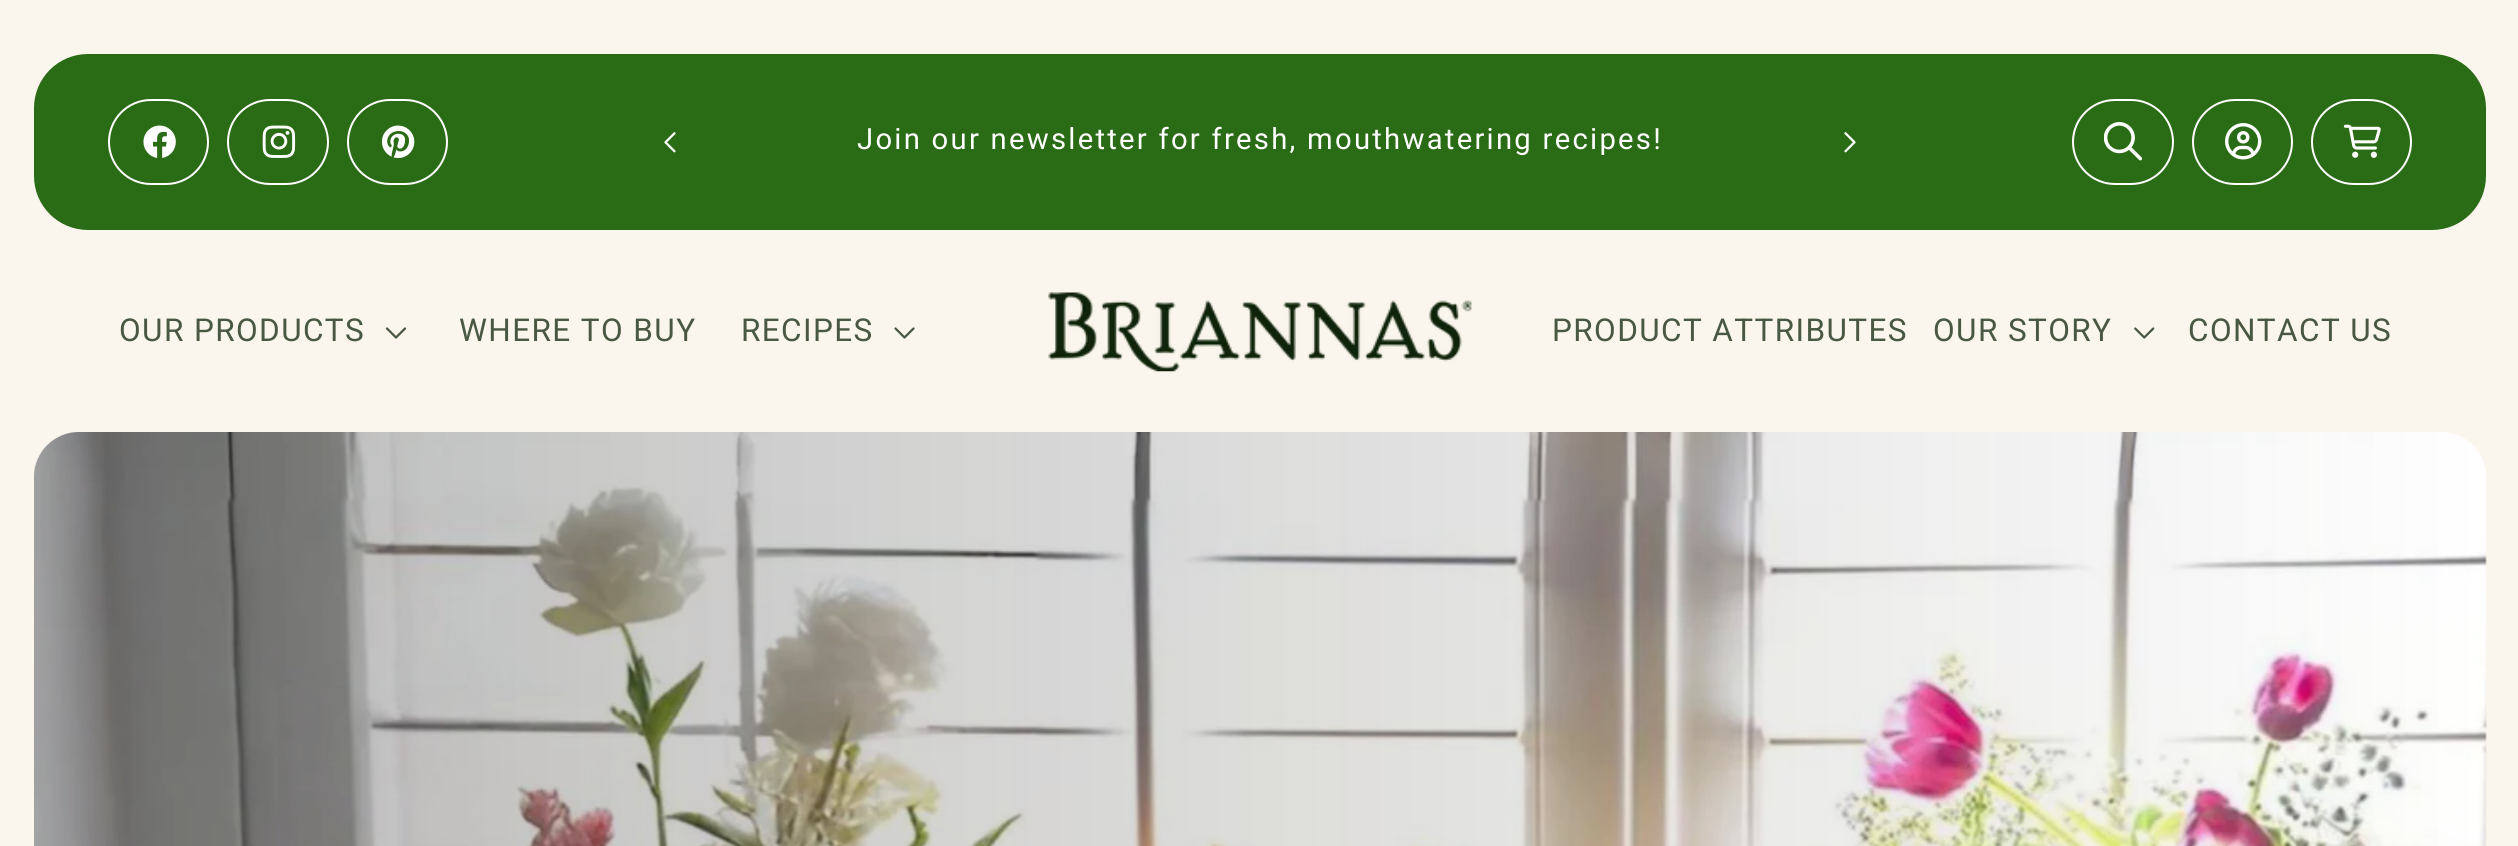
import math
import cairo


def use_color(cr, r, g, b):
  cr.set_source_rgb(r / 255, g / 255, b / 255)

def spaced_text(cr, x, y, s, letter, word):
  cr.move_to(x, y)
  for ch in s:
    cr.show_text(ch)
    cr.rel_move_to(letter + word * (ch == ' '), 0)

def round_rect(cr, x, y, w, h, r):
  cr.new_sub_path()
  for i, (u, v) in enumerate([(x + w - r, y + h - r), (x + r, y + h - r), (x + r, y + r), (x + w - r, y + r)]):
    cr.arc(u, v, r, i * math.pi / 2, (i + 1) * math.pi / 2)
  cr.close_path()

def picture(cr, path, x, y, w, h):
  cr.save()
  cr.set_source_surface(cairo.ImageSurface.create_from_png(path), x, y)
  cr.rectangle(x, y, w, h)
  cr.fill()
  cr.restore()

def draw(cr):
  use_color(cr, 250, 246, 237)
  cr.paint()
  use_color(cr, 42, 107, 22)
  round_rect(cr, 34, 54, 2452, 176, 54)
  cr.fill()
  round_rect(cr, 109, 100, 99, 84, 42)
  use_color(cr, 255, 255, 255)
  cr.stroke()
  picture(cr, "img_01.png", 143, 125, 33, 33)
  round_rect(cr, 228, 100, 100, 84, 42)
  cr.stroke()
  picture(cr, "img_02.png", 262, 125, 34, 33)
  round_rect(cr, 348, 100, 99, 84, 42)
  cr.stroke()
  picture(cr, "img_03.png", 381, 125, 34, 33)
  picture(cr, "img_04.png", 664, 132, 12, 21)
  picture(cr, "img_05.png", 1844, 132, 12, 21)
  round_rect(cr, 2073, 100, 100, 84, 42)
  cr.stroke()
  picture(cr, "img_06.png", 2104, 122, 39, 39)
  round_rect(cr, 2193, 100, 99, 84, 42)
  cr.stroke()
  picture(cr, "img_07.png", 2225, 123, 37, 37)
  round_rect(cr, 2312, 100, 99, 84, 42)
  cr.stroke()
  picture(cr, "img_08.png", 2343, 124, 38, 34)
  picture(cr, "img_09.png", 385, 327, 22, 12)
  picture(cr, "img_10.png", 894, 327, 21, 12)
  picture(cr, "img_11.png", 1048, 292, 424, 80)
  picture(cr, "img_12.png", 2134, 327, 21, 12)
  picture(cr, "img_13.png", 34, 432, 2453, 414)
  gradient = cairo.LinearGradient(34, 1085, 2486, 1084)
  gradient.add_color_stop_rgba(0, 0.102, 0.098, 0.09, 0.3)
  gradient.add_color_stop_rgba(1, 0.102, 0.098, 0.09, 0)
  cr.set_source(gradient)
  round_rect(cr, 34, 432, 2452, 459, 45)
  cr.fill()
  cr.select_font_face("Roboto")
  cr.set_font_size(29.25)
  use_color(cr, 255, 255, 255)
  spaced_text(cr, 857, 149, "Join our newsletter for fresh, mouthwatering recipes!", 2.25, 0)
  cr.set_font_size(31.5)
  use_color(cr, 73, 88, 67)
  spaced_text(cr, 119, 341, "OUR PRODUCTS", 1.4, 0)
  spaced_text(cr, 459, 341, "WHERE TO BUY", 1.4, 0)
  spaced_text(cr, 741, 341, "RECIPES", 1.4, 0)
  spaced_text(cr, 1552, 341, "PRODUCT ATTRIBUTES", 1.4, 0)
  spaced_text(cr, 1933, 341, "OUR STORY", 1.4, 0)
  spaced_text(cr, 2188, 341, "CONTACT US", 1.4, 0)


surface = cairo.ImageSurface(cairo.FORMAT_RGB24, 2518, 846)
cr = cairo.Context(surface)
options = cairo.FontOptions()
options.set_hint_metrics(cairo.HINT_METRICS_OFF)
options.set_hint_style(cairo.HINT_STYLE_NONE)
cr.set_font_options(options)
cr.set_miter_limit(4)
draw(cr)
surface.write_to_png("out.png")
